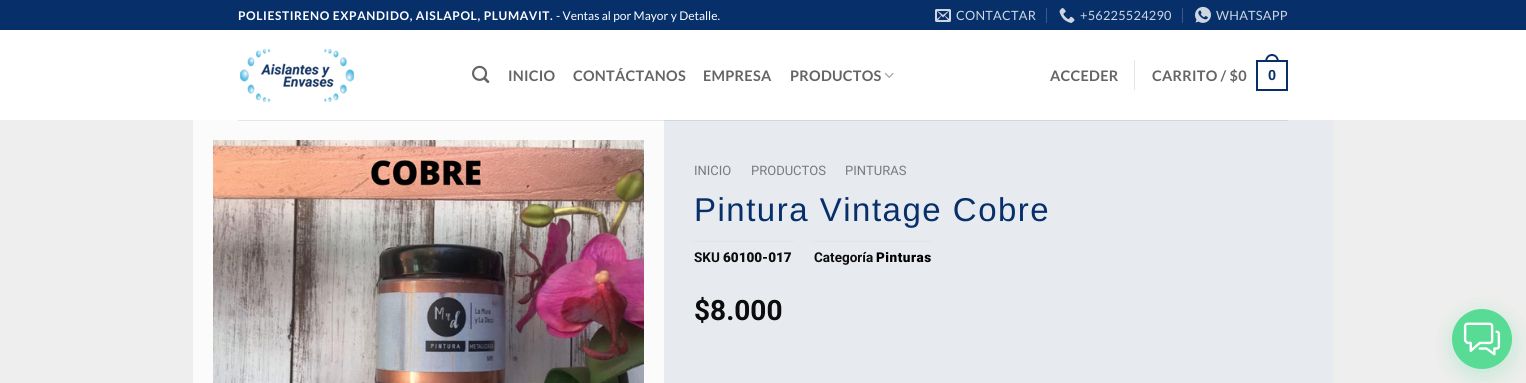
import math
import cairo


def use_color(cr, r, g, b):
  cr.set_source_rgb(r / 255, g / 255, b / 255)

def text(cr, x, y, s, family, size, color, bold=False, italic=False):
  cr.select_font_face(family, cairo.FONT_SLANT_ITALIC if italic else cairo.FONT_SLANT_NORMAL, cairo.FONT_WEIGHT_BOLD if bold else cairo.FONT_WEIGHT_NORMAL)
  cr.set_font_size(size)
  use_color(cr, *color)
  cr.move_to(x, y)
  cr.show_text(s)

def spaced_text(cr, x, y, s, letter, word):
  cr.move_to(x, y)
  for ch in s:
    cr.show_text(ch)
    cr.rel_move_to(letter + word * (ch == ' '), 0)

def box(cr, x, y, w, h, *color):
  use_color(cr, *color)
  cr.rectangle(x, y, w, h)
  cr.fill()

def round_rect(cr, x, y, w, h, r):
  cr.new_sub_path()
  for i, (u, v) in enumerate([(x + w - r, y + h - r), (x + r, y + h - r), (x + r, y + r), (x + w - r, y + r)]):
    cr.arc(u, v, r, i * math.pi / 2, (i + 1) * math.pi / 2)
  cr.close_path()

def shadow(cr, x, y, w, h, r, blur, alpha):
  cr.push_group_with_content(cairo.CONTENT_ALPHA)
  cr.set_operator(cairo.OPERATOR_SOURCE)
  for i in range(15, -16, -2):
    e = blur * i / 6
    if min(w, h) + 2 * e > 0:
      cr.set_source_rgba(0, 0, 0, alpha * math.erfc((i - 1) / 8.5) / 2)
      round_rect(cr, x - e, y - e, w + 2 * e, h + 2 * e, max(0, min(r + e + blur * .6, min(w, h) / 2 + e)))
      cr.fill()
  cr.mask(cr.pop_group())

def picture(cr, path, x, y, w, h):
  cr.save()
  cr.set_source_surface(cairo.ImageSurface.create_from_png(path), x, y)
  cr.rectangle(x, y, w, h)
  cr.fill()
  cr.restore()

def draw(cr):
  use_color(cr, 255, 255, 255)
  cr.paint()
  box(cr, 0, 0, 1526, 30, 7, 48, 106)
  picture(cr, "img_01.png", 935, 9, 16, 13)
  box(cr, 1046, 8, 1, 15, 57, 89, 136)
  picture(cr, "img_02.png", 1059, 8, 16, 15)
  box(cr, 1182, 8, 1, 15, 57, 89, 136)
  picture(cr, "img_03.png", 1195, 6, 16, 17)
  picture(cr, "img_04.png", 240, 49, 114, 53)
  picture(cr, "img_05.png", 472, 65, 18, 18)
  picture(cr, "img_06.png", 884, 72, 10, 6)
  box(cr, 1134, 60, 1, 30, 230, 230, 230)
  cr.rectangle(1257, 61, 30, 29)
  use_color(cr, 7, 48, 106)
  cr.stroke()
  cr.set_fill_rule(cairo.FILL_RULE_EVEN_ODD)
  cr.new_path()
  cr.move_to(1272, 54)
  cr.curve_to(1276.5, 54, 1279, 58, 1279, 62)
  cr.line_to(1265, 62)
  cr.curve_to(1265, 58, 1267.5, 54, 1272, 54)
  cr.close_path()
  cr.move_to(1272, 56)
  cr.curve_to(1275.5, 56, 1277, 59, 1277, 62)
  cr.line_to(1267, 62)
  cr.curve_to(1267, 59, 1268.5, 56, 1272, 56)
  cr.close_path()
  cr.fill()
  box(cr, 0, 120, 1526, 263, 239, 238, 238)
  box(cr, 193, 120, 471, 263, 251, 251, 251)
  box(cr, 238, 120, 426, 1, 227, 231, 237)
  picture(cr, "img_07.png", 213, 140, 431, 243)
  box(cr, 664, 120, 669, 263, 231, 234, 239)
  box(cr, 664, 120, 624, 1, 209, 215, 226)
  cr.new_path()
  cr.move_to(694, 241.5)
  cr.line_to(793, 241.5)
  use_color(cr, 221, 221, 221)
  cr.set_line_width(1)
  cr.set_dash([1, 1])
  cr.stroke()
  cr.new_path()
  cr.move_to(814, 241.5)
  cr.line_to(932, 241.5)
  cr.stroke()
  use_color(cr, 45, 210, 122)
  shadow(cr, 1453, 315, 60, 60, 30, 12, 0.24)
  use_color(cr, 87, 219, 149)
  cr.arc(1482, 339, 30, 0, 2 * math.pi)
  cr.fill()
  picture(cr, "img_08.png", 1463, 322, 38, 34)
  cr.select_font_face("Lato", cairo.FONT_SLANT_NORMAL, cairo.FONT_WEIGHT_BOLD)
  cr.set_font_size(12)
  use_color(cr, 255, 255, 255)
  spaced_text(cr, 238, 20, "POLIESTIRENO EXPANDIDO, AISLAPOL, PLUMAVIT.", 0.6, 0)
  text(cr, 556, 20, "- Ventas al por Mayor y Detalle.", "Lato", 12, (255, 255, 255))
  cr.set_font_size(12.75)
  use_color(cr, 205, 214, 225)
  spaced_text(cr, 956, 20, "CONTACTAR", 0.25, 0)
  spaced_text(cr, 1080, 20, "+56225524290", 0.25, 0)
  spaced_text(cr, 1216, 20, "WHATSAPP", 0.25, 0)
  cr.select_font_face("Lato", cairo.FONT_SLANT_NORMAL, cairo.FONT_WEIGHT_BOLD)
  cr.set_font_size(14.5)
  use_color(cr, 101, 101, 101)
  spaced_text(cr, 508, 81, "INICIO", 0.25, 0)
  spaced_text(cr, 573, 81, "CONTÁCTANOS", 0.25, 0)
  spaced_text(cr, 703, 81, "EMPRESA", 0.25, 0)
  spaced_text(cr, 790, 81, "PRODUCTOS", 0.25, 0)
  spaced_text(cr, 1050, 81, "ACCEDER", 0.25, 0)
  spaced_text(cr, 1152, 81, "CARRITO / $0", 0.25, 0)
  cr.select_font_face("Liberation Sans", cairo.FONT_SLANT_NORMAL, cairo.FONT_WEIGHT_BOLD)
  use_color(cr, 7, 48, 106)
  spaced_text(cr, 1268, 80, "0", 0.25, 0)
  text(cr, 694, 175, "INICIO", "Roboto", 13, (122, 122, 122))
  text(cr, 751, 175, "PRODUCTOS", "Roboto", 13, (122, 122, 122))
  text(cr, 845, 175, "PINTURAS", "Roboto", 13, (122, 122, 122))
  cr.select_font_face("Liberation Sans")
  cr.set_font_size(33)
  use_color(cr, 7, 48, 106)
  spaced_text(cr, 694, 221, "Pintura Vintage Cobre", 1.5, 0)
  text(cr, 694, 262, "SKU", "Roboto", 13.5, (12, 12, 12), bold=True)
  text(cr, 723, 262, "60100-017", "Roboto Black", 13.5, (12, 12, 12))
  text(cr, 814, 262, "Categoría", "Roboto", 13.5, (12, 12, 12), bold=True)
  cr.select_font_face("Roboto Black")
  use_color(cr, 0, 0, 0)
  spaced_text(cr, 876, 262, "Pinturas", 0.5, 0)
  text(cr, 694, 320, "$8.000", "Roboto", 28, (12, 12, 12), bold=True)


surface = cairo.ImageSurface(cairo.FORMAT_RGB24, 1526, 383)
cr = cairo.Context(surface)
options = cairo.FontOptions()
options.set_hint_metrics(cairo.HINT_METRICS_OFF)
options.set_hint_style(cairo.HINT_STYLE_NONE)
cr.set_font_options(options)
cr.set_miter_limit(4)
draw(cr)
surface.write_to_png("out.png")
